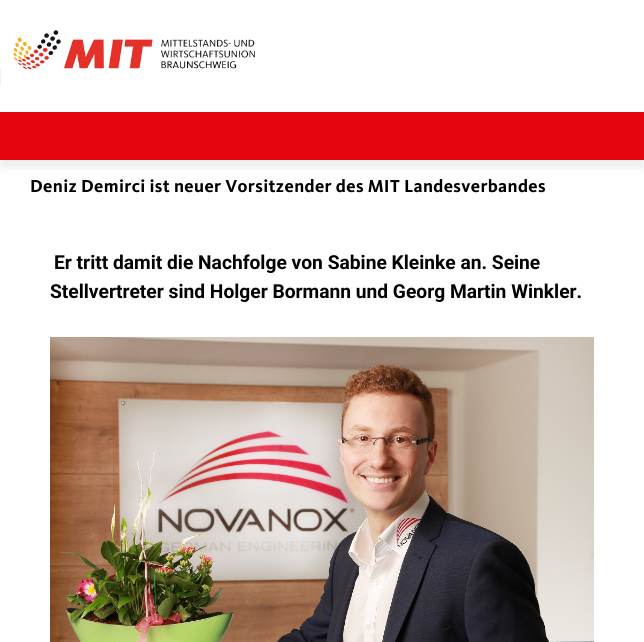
import math
import cairo


def use_color(cr, r, g, b):
  cr.set_source_rgb(r / 255, g / 255, b / 255)

def text(cr, x, y, s, family, size, color, bold=False, italic=False):
  cr.select_font_face(family, cairo.FONT_SLANT_ITALIC if italic else cairo.FONT_SLANT_NORMAL, cairo.FONT_WEIGHT_BOLD if bold else cairo.FONT_WEIGHT_NORMAL)
  cr.set_font_size(size)
  use_color(cr, *color)
  cr.move_to(x, y)
  cr.show_text(s)

def spaced_text(cr, x, y, s, letter, word):
  cr.move_to(x, y)
  for ch in s:
    cr.show_text(ch)
    cr.rel_move_to(letter + word * (ch == ' '), 0)

def box(cr, x, y, w, h, *color):
  use_color(cr, *color)
  cr.rectangle(x, y, w, h)
  cr.fill()

def round_rect(cr, x, y, w, h, r):
  cr.new_sub_path()
  for i, (u, v) in enumerate([(x + w - r, y + h - r), (x + r, y + h - r), (x + r, y + r), (x + w - r, y + r)]):
    cr.arc(u, v, r, i * math.pi / 2, (i + 1) * math.pi / 2)
  cr.close_path()

def shadow(cr, x, y, w, h, r, blur, alpha):
  cr.push_group_with_content(cairo.CONTENT_ALPHA)
  cr.set_operator(cairo.OPERATOR_SOURCE)
  for i in range(15, -16, -2):
    e = blur * i / 6
    if min(w, h) + 2 * e > 0:
      cr.set_source_rgba(0, 0, 0, alpha * math.erfc((i - 1) / 8.5) / 2)
      round_rect(cr, x - e, y - e, w + 2 * e, h + 2 * e, max(0, min(r + e + blur * .6, min(w, h) / 2 + e)))
      cr.fill()
  cr.mask(cr.pop_group())

def picture(cr, path, x, y, w, h):
  cr.save()
  cr.set_source_surface(cairo.ImageSurface.create_from_png(path), x, y)
  cr.rectangle(x, y, w, h)
  cr.fill()
  cr.restore()

def draw(cr):
  use_color(cr, 255, 255, 255)
  cr.paint()
  picture(cr, "img_01.png", 0, 30, 255, 55)
  use_color(cr, 238, 238, 238)
  shadow(cr, 0, 120, 644, 48, 0, 4, 1)
  box(cr, 0, 112, 644, 48, 230, 5, 15)
  picture(cr, "img_02.png", 50, 337, 544, 305)
  cr.select_font_face("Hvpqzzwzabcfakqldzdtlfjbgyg", cairo.FONT_SLANT_NORMAL, cairo.FONT_WEIGHT_BOLD)
  cr.set_font_size(18)
  use_color(cr, 0, 0, 0)
  spaced_text(cr, 30, 192, "Deniz Demirci ist neuer Vorsitzender des MIT Landesverbandes", 0.35, 0)
  text(cr, 54, 269, "Er tritt damit die Nachfolge von Sabine Kleinke an. Seine", "Roboto", 19.2, (0, 0, 0), bold=True)
  text(cr, 50, 298, "Stellvertreter sind Holger Bormann und Georg Martin Winkler.", "Roboto", 19.2, (0, 0, 0), bold=True)


surface = cairo.ImageSurface(cairo.FORMAT_RGB24, 644, 642)
cr = cairo.Context(surface)
options = cairo.FontOptions()
options.set_hint_metrics(cairo.HINT_METRICS_OFF)
options.set_hint_style(cairo.HINT_STYLE_NONE)
cr.set_font_options(options)
cr.set_miter_limit(4)
draw(cr)
surface.write_to_png("out.png")
